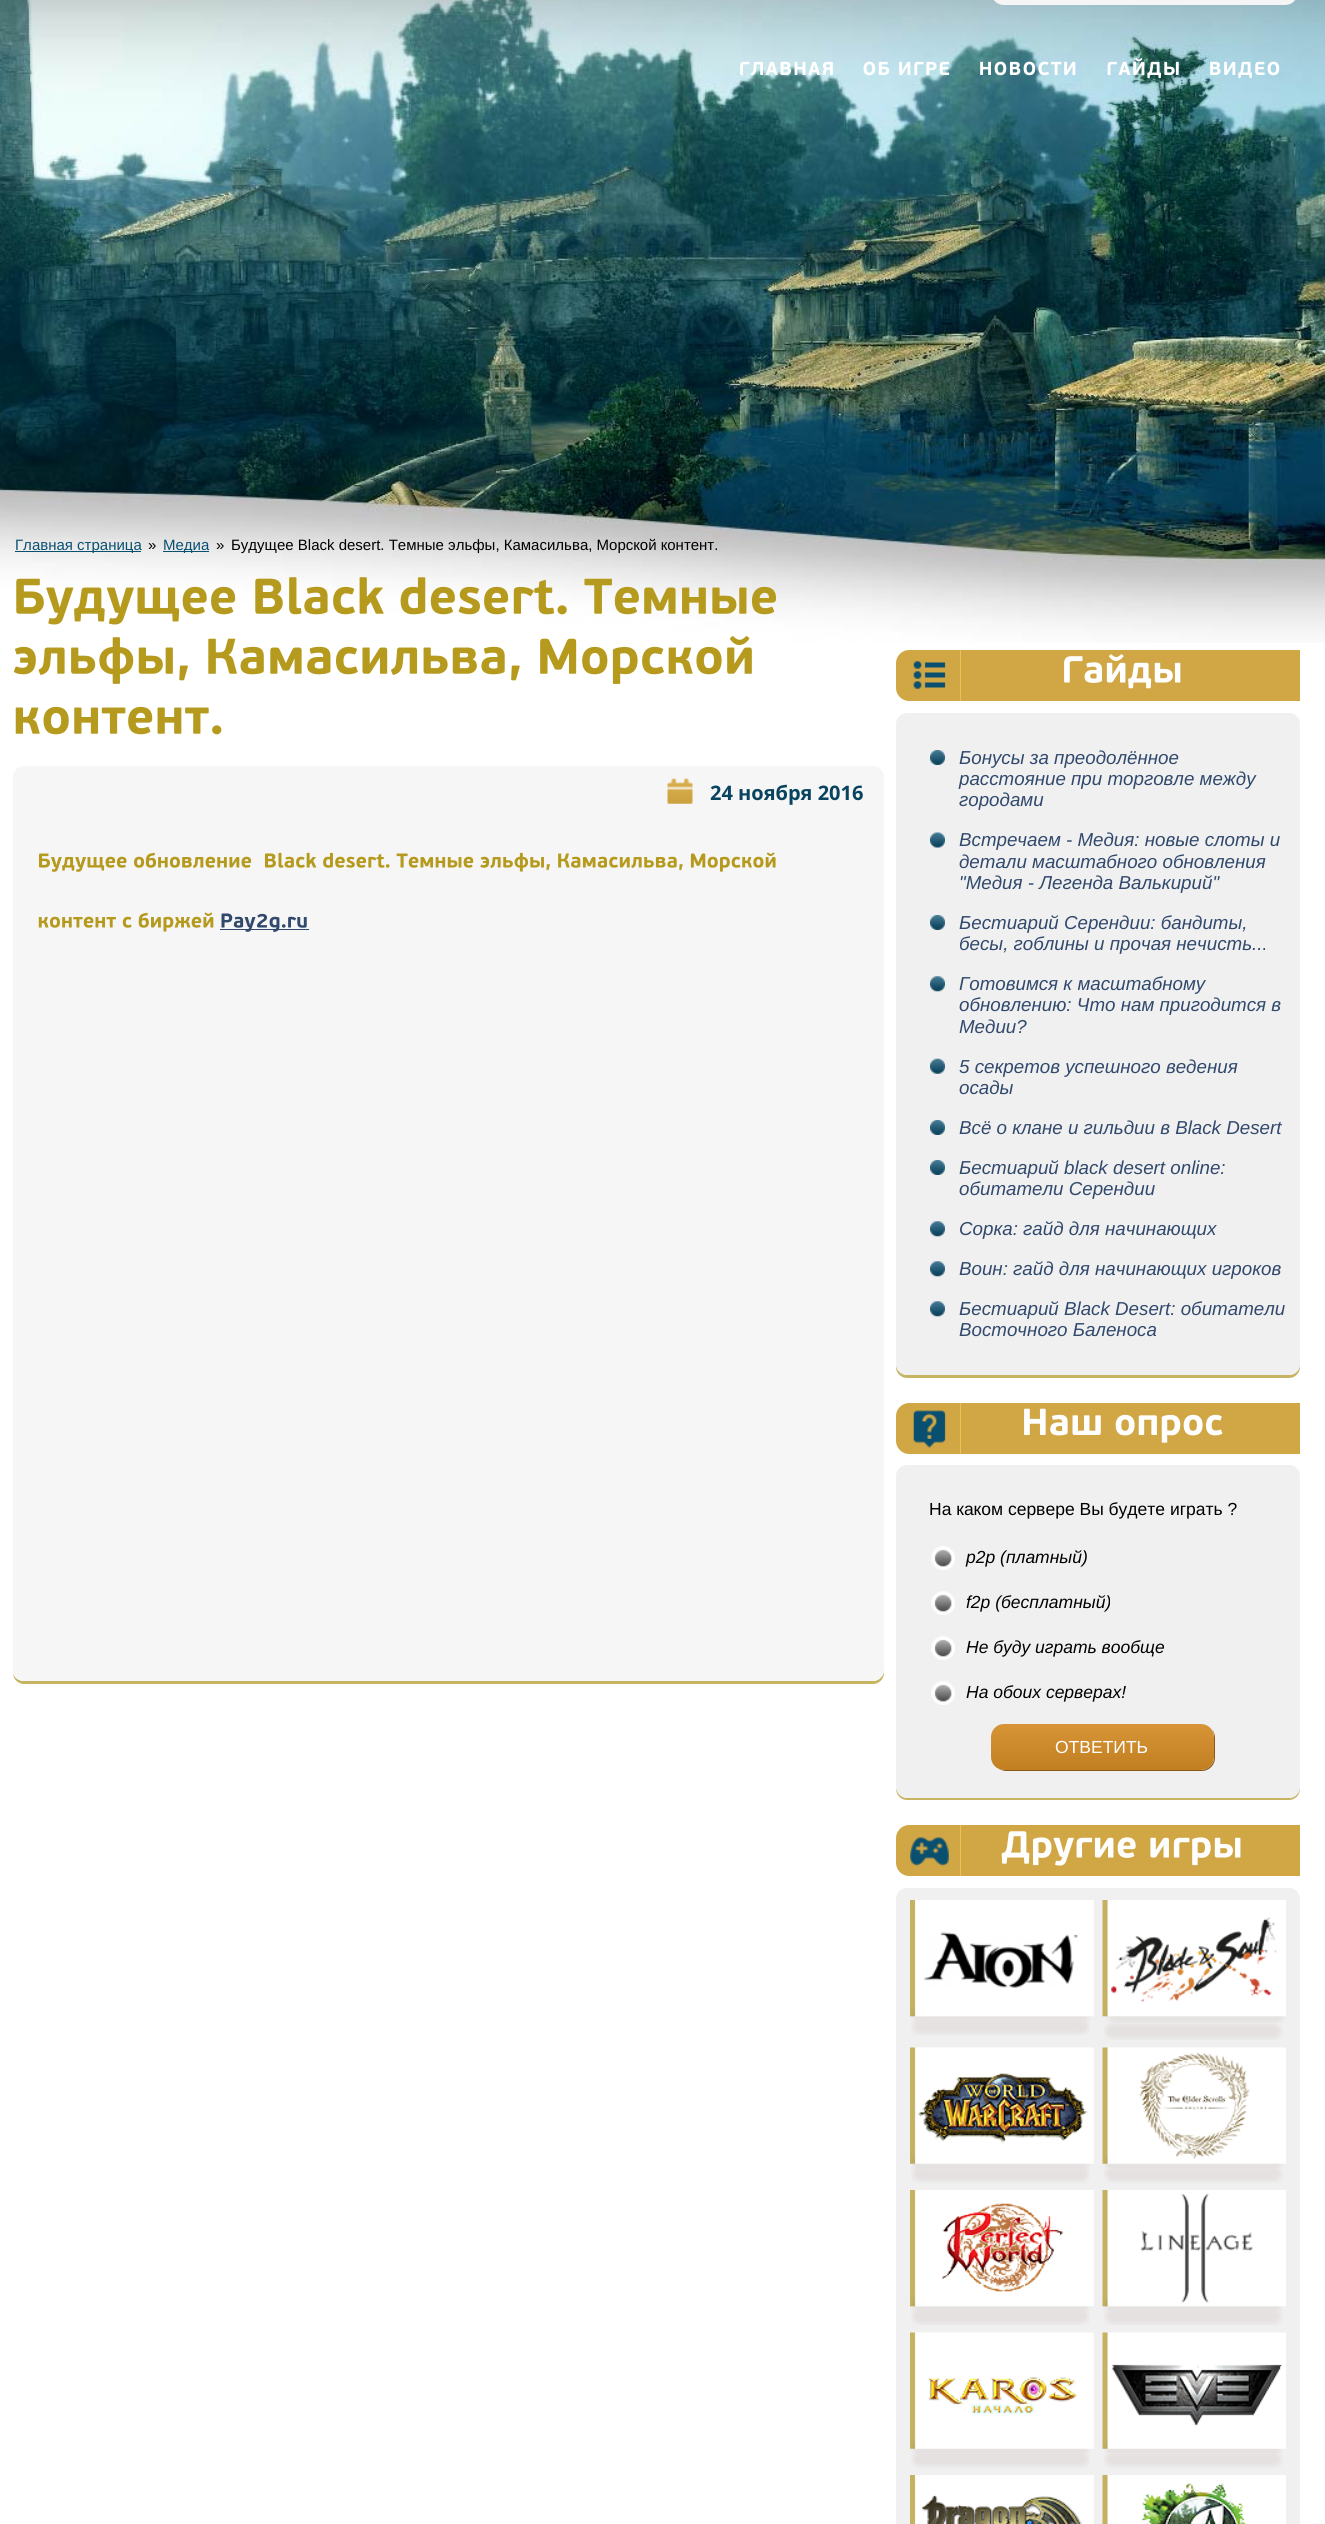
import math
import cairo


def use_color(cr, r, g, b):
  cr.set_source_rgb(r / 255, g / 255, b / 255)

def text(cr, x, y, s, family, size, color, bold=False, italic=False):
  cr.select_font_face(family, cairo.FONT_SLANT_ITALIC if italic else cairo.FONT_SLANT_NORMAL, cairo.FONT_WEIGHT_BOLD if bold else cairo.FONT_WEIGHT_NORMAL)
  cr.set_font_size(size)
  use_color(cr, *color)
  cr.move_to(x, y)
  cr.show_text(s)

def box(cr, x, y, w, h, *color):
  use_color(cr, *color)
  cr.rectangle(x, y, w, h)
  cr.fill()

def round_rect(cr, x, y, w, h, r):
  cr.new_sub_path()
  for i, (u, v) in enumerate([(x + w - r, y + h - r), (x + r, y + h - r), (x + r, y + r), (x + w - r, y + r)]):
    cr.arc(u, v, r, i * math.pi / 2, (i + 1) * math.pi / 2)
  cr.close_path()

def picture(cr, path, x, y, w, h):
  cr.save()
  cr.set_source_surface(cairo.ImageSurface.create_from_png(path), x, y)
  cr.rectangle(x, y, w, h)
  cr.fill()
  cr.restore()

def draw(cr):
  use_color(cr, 255, 255, 255)
  cr.paint()
  picture(cr, "img_01.png", 0, 0, 1325, 643)
  use_color(cr, 245, 245, 245)
  round_rect(cr, 991, -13, 307, 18, 13)
  cr.fill()
  picture(cr, "img_02.png", 740, 61, 93, 15)
  picture(cr, "img_03.png", 863, 61, 87, 15)
  picture(cr, "img_04.png", 980, 61, 96, 15)
  picture(cr, "img_05.png", 1107, 58, 72, 21)
  picture(cr, "img_06.png", 1210, 61, 70, 18)
  box(cr, 15, 551, 126, 1, 9, 79, 112)
  box(cr, 163, 551, 46, 1, 9, 79, 112)
  picture(cr, "img_07.png", 16, 577, 761, 48)
  picture(cr, "img_08.png", 13, 636, 739, 48)
  picture(cr, "img_09.png", 15, 706, 207, 29)
  use_color(cr, 199, 180, 98)
  cr.new_path()
  cr.move_to(13, 1673)
  cr.curve_to(13, 1679, 18, 1684, 24, 1684)
  cr.line_to(873, 1684)
  cr.curve_to(879, 1684, 884, 1679, 884, 1673)
  cr.line_to(884, 778)
  cr.line_to(884, 1670)
  cr.curve_to(884, 1676, 879, 1681, 872, 1681)
  cr.line_to(24, 1681)
  cr.curve_to(19, 1681, 14, 1678, 13, 1673)
  cr.close_path()
  cr.fill()
  use_color(cr, 246, 246, 246)
  round_rect(cr, 13, 766, 871, 915, 11)
  cr.fill()
  picture(cr, "img_10.png", 667, 778, 26, 26)
  picture(cr, "img_11.png", 39, 852, 737, 20)
  picture(cr, "img_12.png", 38, 912, 176, 20)
  box(cr, 220, 929, 89, 1, 49, 73, 109)
  picture(cr, "img_13.png", 221, 913, 86, 20)
  use_color(cr, 209, 166, 69)
  cr.new_path()
  cr.move_to(909, 650)
  cr.line_to(1300, 650)
  cr.line_to(1300, 701)
  cr.line_to(909, 701)
  cr.curve_to(902, 701, 896, 695, 896, 688)
  cr.line_to(896, 663)
  cr.curve_to(896, 656, 902, 650, 909, 650)
  cr.close_path()
  cr.fill()
  picture(cr, "img_14.png", 913, 661, 33, 28)
  box(cr, 960, 650, 1, 51, 239, 191, 82)
  picture(cr, "img_15.png", 1064, 654, 117, 35)
  use_color(cr, 199, 180, 98)
  cr.new_path()
  cr.move_to(896, 724)
  cr.line_to(896, 1367)
  cr.curve_to(896, 1373, 901, 1378, 907, 1378)
  cr.line_to(1289, 1378)
  cr.curve_to(1295, 1378, 1300, 1373, 1300, 1367)
  cr.line_to(1300, 1364)
  cr.curve_to(1300, 1370, 1295, 1375, 1289, 1375)
  cr.line_to(908, 1375)
  cr.curve_to(901, 1375, 896, 1370, 896, 1364)
  cr.close_path()
  cr.fill()
  use_color(cr, 240, 240, 240)
  round_rect(cr, 896, 713, 404, 662, 11)
  cr.fill()
  picture(cr, "img_16.png", 930, 750, 15, 15)
  picture(cr, "img_17.png", 930, 832, 15, 16)
  picture(cr, "img_16.png", 930, 915, 15, 15)
  picture(cr, "img_18.png", 930, 976, 15, 16)
  picture(cr, "img_19.png", 930, 1058, 15, 16)
  picture(cr, "img_16.png", 930, 1120, 15, 15)
  picture(cr, "img_16.png", 930, 1160, 15, 15)
  picture(cr, "img_18.png", 930, 1221, 15, 16)
  picture(cr, "img_18.png", 930, 1261, 15, 16)
  picture(cr, "img_18.png", 930, 1301, 15, 16)
  use_color(cr, 209, 166, 69)
  cr.new_path()
  cr.move_to(909, 1403)
  cr.line_to(1300, 1403)
  cr.line_to(1300, 1454)
  cr.line_to(909, 1454)
  cr.curve_to(902, 1454, 896, 1448, 896, 1441)
  cr.line_to(896, 1416)
  cr.curve_to(896, 1409, 902, 1403, 909, 1403)
  cr.close_path()
  cr.fill()
  picture(cr, "img_20.png", 913, 1410, 33, 38)
  box(cr, 960, 1403, 1, 51, 239, 191, 82)
  picture(cr, "img_21.png", 1024, 1408, 199, 35)
  use_color(cr, 199, 180, 98)
  cr.new_path()
  cr.move_to(896, 1477)
  cr.line_to(896, 1789)
  cr.curve_to(896, 1795, 901, 1800, 907, 1800)
  cr.line_to(1289, 1800)
  cr.curve_to(1295, 1800, 1300, 1795, 1300, 1789)
  cr.line_to(1300, 1786)
  cr.curve_to(1300, 1792, 1295, 1798, 1289, 1798)
  cr.line_to(908, 1798)
  cr.curve_to(901, 1798, 896, 1792, 896, 1786)
  cr.close_path()
  cr.fill()
  use_color(cr, 240, 240, 240)
  round_rect(cr, 896, 1465, 404, 333, 11)
  cr.fill()
  picture(cr, "img_22.png", 931, 1546, 24, 24)
  picture(cr, "img_23.png", 931, 1591, 24, 24)
  picture(cr, "img_23.png", 931, 1636, 24, 24)
  picture(cr, "img_23.png", 931, 1681, 24, 24)
  use_color(cr, 136, 90, 23)
  cr.new_path()
  cr.move_to(999, 1769)
  cr.curve_to(1001, 1770, 1004, 1771, 1006, 1771)
  cr.line_to(1202, 1771)
  cr.curve_to(1209, 1771, 1215, 1765, 1215, 1758)
  cr.line_to(1215, 1738)
  cr.curve_to(1215, 1735, 1214, 1732, 1212, 1729)
  cr.curve_to(1213, 1731, 1214, 1734, 1214, 1736)
  cr.line_to(1214, 1758)
  cr.curve_to(1214, 1764, 1208, 1770, 1201, 1770)
  cr.line_to(1004, 1770)
  cr.close_path()
  cr.fill()
  gradient = cairo.LinearGradient(1103, 1724, 1103, 1770)
  gradient.add_color_stop_rgba(0, 0.843, 0.584, 0.216, 1)
  gradient.add_color_stop_rgba(1, 0.757, 0.498, 0.129, 1)
  cr.set_source(gradient)
  round_rect(cr, 991, 1724, 223, 46, 13)
  cr.fill()
  use_color(cr, 209, 166, 69)
  cr.new_path()
  cr.move_to(909, 1825)
  cr.line_to(1300, 1825)
  cr.line_to(1300, 1876)
  cr.line_to(909, 1876)
  cr.curve_to(902, 1876, 896, 1870, 896, 1863)
  cr.line_to(896, 1838)
  cr.curve_to(896, 1831, 902, 1825, 909, 1825)
  cr.close_path()
  cr.fill()
  picture(cr, "img_24.png", 910, 1837, 39, 29)
  box(cr, 960, 1825, 1, 51, 239, 191, 82)
  picture(cr, "img_25.png", 1001, 1831, 240, 35)
  use_color(cr, 240, 240, 240)
  round_rect(cr, 896, 1888, 404, 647, 11)
  cr.fill()
  picture(cr, "img_27.png", 911, 2017, 179, 18)
  picture(cr, "img_26.png", 910, 1900, 184, 121)
  picture(cr, "img_29.png", 1104, 2022, 179, 18)
  picture(cr, "img_28.png", 1102, 1900, 184, 123)
  picture(cr, "img_31.png", 911, 2165, 179, 18)
  picture(cr, "img_30.png", 910, 2047, 184, 122)
  picture(cr, "img_33.png", 1104, 2164, 179, 19)
  picture(cr, "img_32.png", 1102, 2047, 184, 121)
  picture(cr, "img_27.png", 911, 2307, 179, 18)
  picture(cr, "img_34.png", 910, 2190, 184, 121)
  picture(cr, "img_29.png", 1104, 2307, 179, 18)
  picture(cr, "img_35.png", 1102, 2190, 184, 121)
  picture(cr, "img_37.png", 911, 2450, 179, 18)
  picture(cr, "img_36.png", 910, 2332, 184, 122)
  picture(cr, "img_39.png", 1104, 2449, 179, 19)
  picture(cr, "img_38.png", 1102, 2332, 184, 121)
  picture(cr, "img_40.png", 910, 2475, 184, 49)
  picture(cr, "img_41.png", 1102, 2475, 184, 49)
  text(cr, 15, 550, "Главная страница", "Liberation Sans", 15, (9, 79, 112))
  text(cr, 148, 550, "»", "Liberation Sans", 15, (0, 0, 0))
  text(cr, 163, 550, "Медиа", "Liberation Sans", 15, (9, 79, 112))
  text(cr, 216, 550, "»", "Liberation Sans", 15, (0, 0, 0))
  text(cr, 231, 550, "Будущее Black desert. Темные эльфы, Камасильва, Морской контент.", "Liberation Sans", 15, (0, 0, 0))
  text(cr, 710, 800, "24 ноября 2016", "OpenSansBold", 20, (8, 67, 95), bold=True)
  text(cr, 959, 764, "Бонусы за преодолённое", "Liberation Sans", 18.75, (49, 73, 109), italic=True)
  text(cr, 959, 785, "расстояние при торговле между", "Liberation Sans", 18.75, (49, 73, 109), italic=True)
  text(cr, 959, 806, "городами", "Liberation Sans", 18.75, (49, 73, 109), italic=True)
  text(cr, 959, 846, "Встречаем - Медия: новые слоты и", "Liberation Sans", 18.75, (49, 73, 109), italic=True)
  text(cr, 959, 868, "детали масштабного обновления", "Liberation Sans", 18.75, (49, 73, 109), italic=True)
  text(cr, 959, 889, "\"Медия - Легенда Валькирий\"", "Liberation Sans", 18.75, (49, 73, 109), italic=True)
  text(cr, 959, 929, "Бестиарий Серендии: бандиты,", "Liberation Sans", 18.75, (49, 73, 109), italic=True)
  text(cr, 959, 950, "бесы, гоблины и прочая нечисть...", "Liberation Sans", 18.75, (49, 73, 109), italic=True)
  text(cr, 959, 990, "Готовимся к масштабному", "Liberation Sans", 18.75, (49, 73, 109), italic=True)
  text(cr, 959, 1011, "обновлению: Что нам пригодится в", "Liberation Sans", 18.75, (49, 73, 109), italic=True)
  text(cr, 959, 1033, "Медии?", "Liberation Sans", 18.75, (49, 73, 109), italic=True)
  text(cr, 959, 1073, "5 секретов успешного ведения", "Liberation Sans", 18.75, (49, 73, 109), italic=True)
  text(cr, 959, 1094, "осады", "Liberation Sans", 18.75, (49, 73, 109), italic=True)
  text(cr, 959, 1134, "Всё о клане и гильдии в Black Desert", "Liberation Sans", 18.75, (49, 73, 109), italic=True)
  text(cr, 959, 1174, "Бестиарий black desert online:", "Liberation Sans", 18.75, (49, 73, 109), italic=True)
  text(cr, 959, 1195, "обитатели Серендии", "Liberation Sans", 18.75, (49, 73, 109), italic=True)
  text(cr, 959, 1235, "Сорка: гайд для начинающих", "Liberation Sans", 18.75, (49, 73, 109), italic=True)
  text(cr, 959, 1275, "Воин: гайд для начинающих игроков", "Liberation Sans", 18.75, (49, 73, 109), italic=True)
  text(cr, 959, 1315, "Бестиарий Black Desert: обитатели", "Liberation Sans", 18.75, (49, 73, 109), italic=True)
  text(cr, 959, 1336, "Восточного Баленоса", "Liberation Sans", 18.75, (49, 73, 109), italic=True)
  text(cr, 929, 1515, "На каком сервере Вы будете играть ?", "Liberation Sans", 17.5, (0, 0, 0))
  text(cr, 966, 1563, "p2p (платный)", "Liberation Sans", 17.5, (0, 0, 0), italic=True)
  text(cr, 966, 1608, "f2p (бесплатный)", "Liberation Sans", 17.5, (0, 0, 0), italic=True)
  text(cr, 966, 1653, "Не буду играть вообще", "Liberation Sans", 17.5, (0, 0, 0), italic=True)
  text(cr, 966, 1698, "На обоих серверах!", "Liberation Sans", 17.5, (0, 0, 0), italic=True)
  text(cr, 1055, 1753, "ОТВЕТИТЬ", "Liberation Sans", 17.5, (255, 255, 255))


surface = cairo.ImageSurface(cairo.FORMAT_RGB24, 1325, 2524)
cr = cairo.Context(surface)
options = cairo.FontOptions()
options.set_hint_metrics(cairo.HINT_METRICS_OFF)
options.set_hint_style(cairo.HINT_STYLE_NONE)
cr.set_font_options(options)
cr.set_miter_limit(4)
draw(cr)
surface.write_to_png("out.png")
